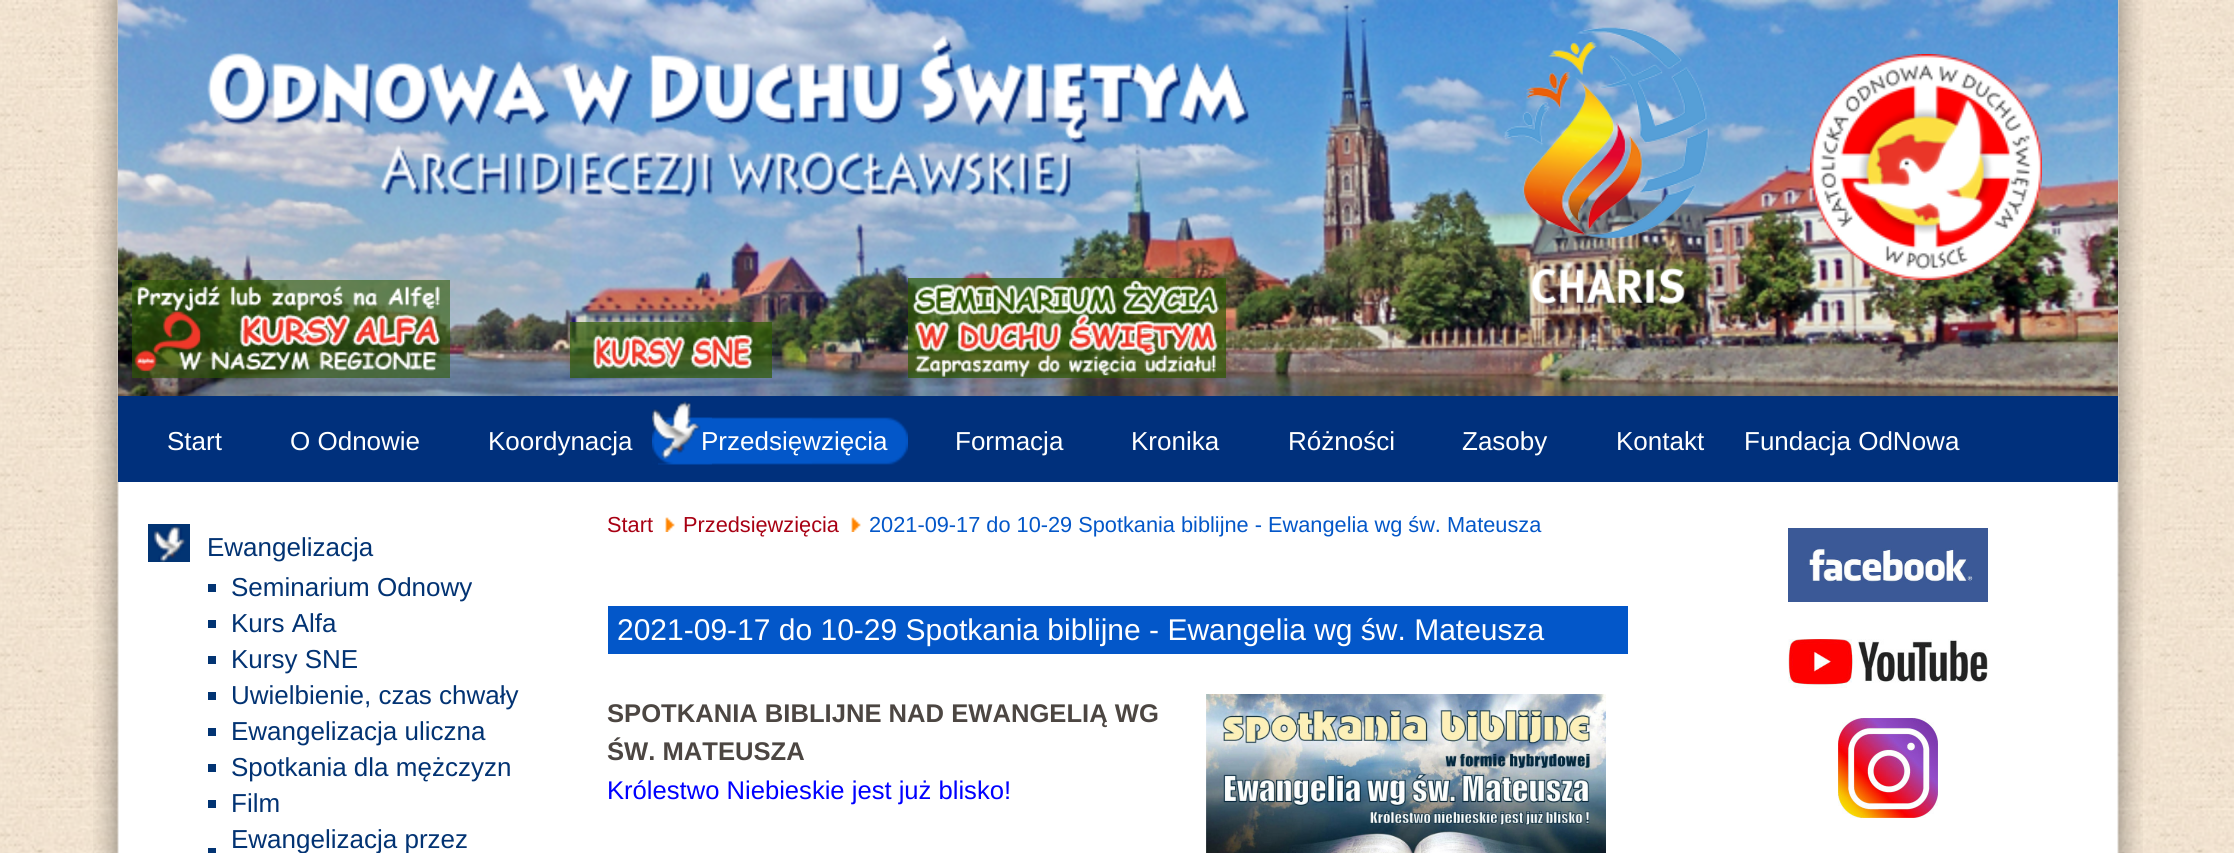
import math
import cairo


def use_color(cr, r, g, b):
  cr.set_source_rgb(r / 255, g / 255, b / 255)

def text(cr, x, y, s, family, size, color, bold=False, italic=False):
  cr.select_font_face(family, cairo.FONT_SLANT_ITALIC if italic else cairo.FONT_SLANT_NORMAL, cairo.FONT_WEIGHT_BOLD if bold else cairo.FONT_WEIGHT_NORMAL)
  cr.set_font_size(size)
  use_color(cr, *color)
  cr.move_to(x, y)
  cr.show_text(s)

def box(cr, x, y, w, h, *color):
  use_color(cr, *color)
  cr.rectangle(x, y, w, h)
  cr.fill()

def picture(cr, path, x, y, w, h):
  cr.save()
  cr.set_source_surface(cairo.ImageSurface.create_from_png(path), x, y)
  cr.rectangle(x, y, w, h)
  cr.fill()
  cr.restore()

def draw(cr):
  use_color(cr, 255, 255, 255)
  cr.paint()
  picture(cr, "img_01.png", 0, 0, 2234, 853)
  picture(cr, "img_02.png", 93, 0, 2050, 853)
  picture(cr, "img_03.png", 118, 0, 2000, 396)
  picture(cr, "img_04.png", 207, 35, 1043, 164)
  picture(cr, "img_05.png", 1503, 27, 206, 278)
  picture(cr, "img_06.png", 1810, 54, 232, 226)
  picture(cr, "img_07.png", 132, 280, 318, 98)
  picture(cr, "img_08.png", 570, 322, 202, 56)
  picture(cr, "img_09.png", 908, 278, 318, 100)
  box(cr, 118, 396, 2000, 86, 0, 48, 124)
  picture(cr, "img_10.png", 658, 417, 250, 48)
  picture(cr, "img_11.png", 652, 401, 60, 64)
  picture(cr, "img_12.png", 148, 524, 42, 38)
  box(cr, 208, 584, 8, 8, 2, 52, 115)
  box(cr, 208, 620, 8, 8, 2, 52, 115)
  box(cr, 208, 656, 8, 8, 2, 52, 115)
  box(cr, 208, 692, 8, 8, 2, 52, 115)
  box(cr, 208, 728, 8, 8, 2, 52, 115)
  box(cr, 208, 764, 8, 8, 2, 52, 115)
  box(cr, 208, 800, 8, 8, 2, 52, 115)
  box(cr, 208, 848, 8, 5, 2, 52, 115)
  picture(cr, "img_13.png", 665, 517, 10, 15)
  picture(cr, "img_13.png", 851, 517, 10, 15)
  box(cr, 608, 606, 1020, 48, 3, 87, 201)
  picture(cr, "img_14.png", 1206, 694, 400, 159)
  picture(cr, "img_15.png", 1788, 528, 200, 74)
  picture(cr, "img_16.png", 1788, 639, 200, 49)
  picture(cr, "img_17.png", 1838, 718, 100, 100)
  text(cr, 167, 450, "Start", "Liberation Sans", 26, (255, 255, 255))
  text(cr, 290, 450, "O Odnowie", "Liberation Sans", 26, (255, 255, 255))
  text(cr, 488, 450, "Koordynacja", "Liberation Sans", 26, (255, 255, 255))
  text(cr, 701, 450, "Przedsięwzięcia", "Liberation Sans", 26, (255, 255, 255))
  text(cr, 955, 450, "Formacja", "Liberation Sans", 26, (255, 255, 255))
  text(cr, 1131, 450, "Kronika", "Liberation Sans", 26, (255, 255, 255))
  text(cr, 1288, 450, "Różności", "Liberation Sans", 26, (255, 255, 255))
  text(cr, 1462, 450, "Zasoby", "Liberation Sans", 26, (255, 255, 255))
  text(cr, 1616, 450, "Kontakt", "Liberation Sans", 26, (255, 255, 255))
  text(cr, 1744, 450, "Fundacja OdNowa", "Liberation Sans", 26, (255, 255, 255))
  text(cr, 207, 556, "Ewangelizacja", "Liberation Sans", 26, (2, 51, 115))
  text(cr, 231, 596, "Seminarium Odnowy", "Liberation Sans", 26, (2, 51, 115))
  text(cr, 231, 632, "Kurs Alfa", "Liberation Sans", 26, (2, 51, 115))
  text(cr, 231, 668, "Kursy SNE", "Liberation Sans", 26, (2, 51, 115))
  text(cr, 231, 704, "Uwielbienie, czas chwały", "Liberation Sans", 26, (2, 51, 115))
  text(cr, 231, 740, "Ewangelizacja uliczna", "Liberation Sans", 26, (2, 51, 115))
  text(cr, 231, 776, "Spotkania dla mężczyzn", "Liberation Sans", 26, (2, 51, 115))
  text(cr, 231, 812, "Film", "Liberation Sans", 26, (2, 51, 115))
  text(cr, 231, 848, "Ewangelizacja przez", "Liberation Sans", 26, (2, 51, 115))
  text(cr, 607, 532, "Start", "Liberation Sans", 21.75, (168, 0, 19))
  text(cr, 683, 532, "Przedsięwzięcia", "Liberation Sans", 21.75, (168, 0, 19))
  text(cr, 869, 532, "2021-09-17 do 10-29 Spotkania biblijne - Ewangelia wg św. Mateusza", "Liberation Sans", 21.75, (3, 87, 201))
  text(cr, 617, 640, "2021-09-17 do 10-29 Spotkania biblijne - Ewangelia wg św. Mateusza", "Liberation Sans", 30, (255, 255, 255))
  text(cr, 607, 722, "SPOTKANIA BIBLIJNE NAD EWANGELIĄ WG", "Liberation Sans", 25.6, (76, 70, 66), bold=True)
  text(cr, 607, 760, "ŚW. MATEUSZA", "Liberation Sans", 25.6, (76, 70, 66), bold=True)
  text(cr, 607, 799, "Królestwo Niebieskie jest już blisko!", "Liberation Sans", 25.6, (0, 0, 255))


surface = cairo.ImageSurface(cairo.FORMAT_RGB24, 2234, 853)
cr = cairo.Context(surface)
options = cairo.FontOptions()
options.set_hint_metrics(cairo.HINT_METRICS_OFF)
options.set_hint_style(cairo.HINT_STYLE_NONE)
cr.set_font_options(options)
cr.set_miter_limit(4)
draw(cr)
surface.write_to_png("out.png")
